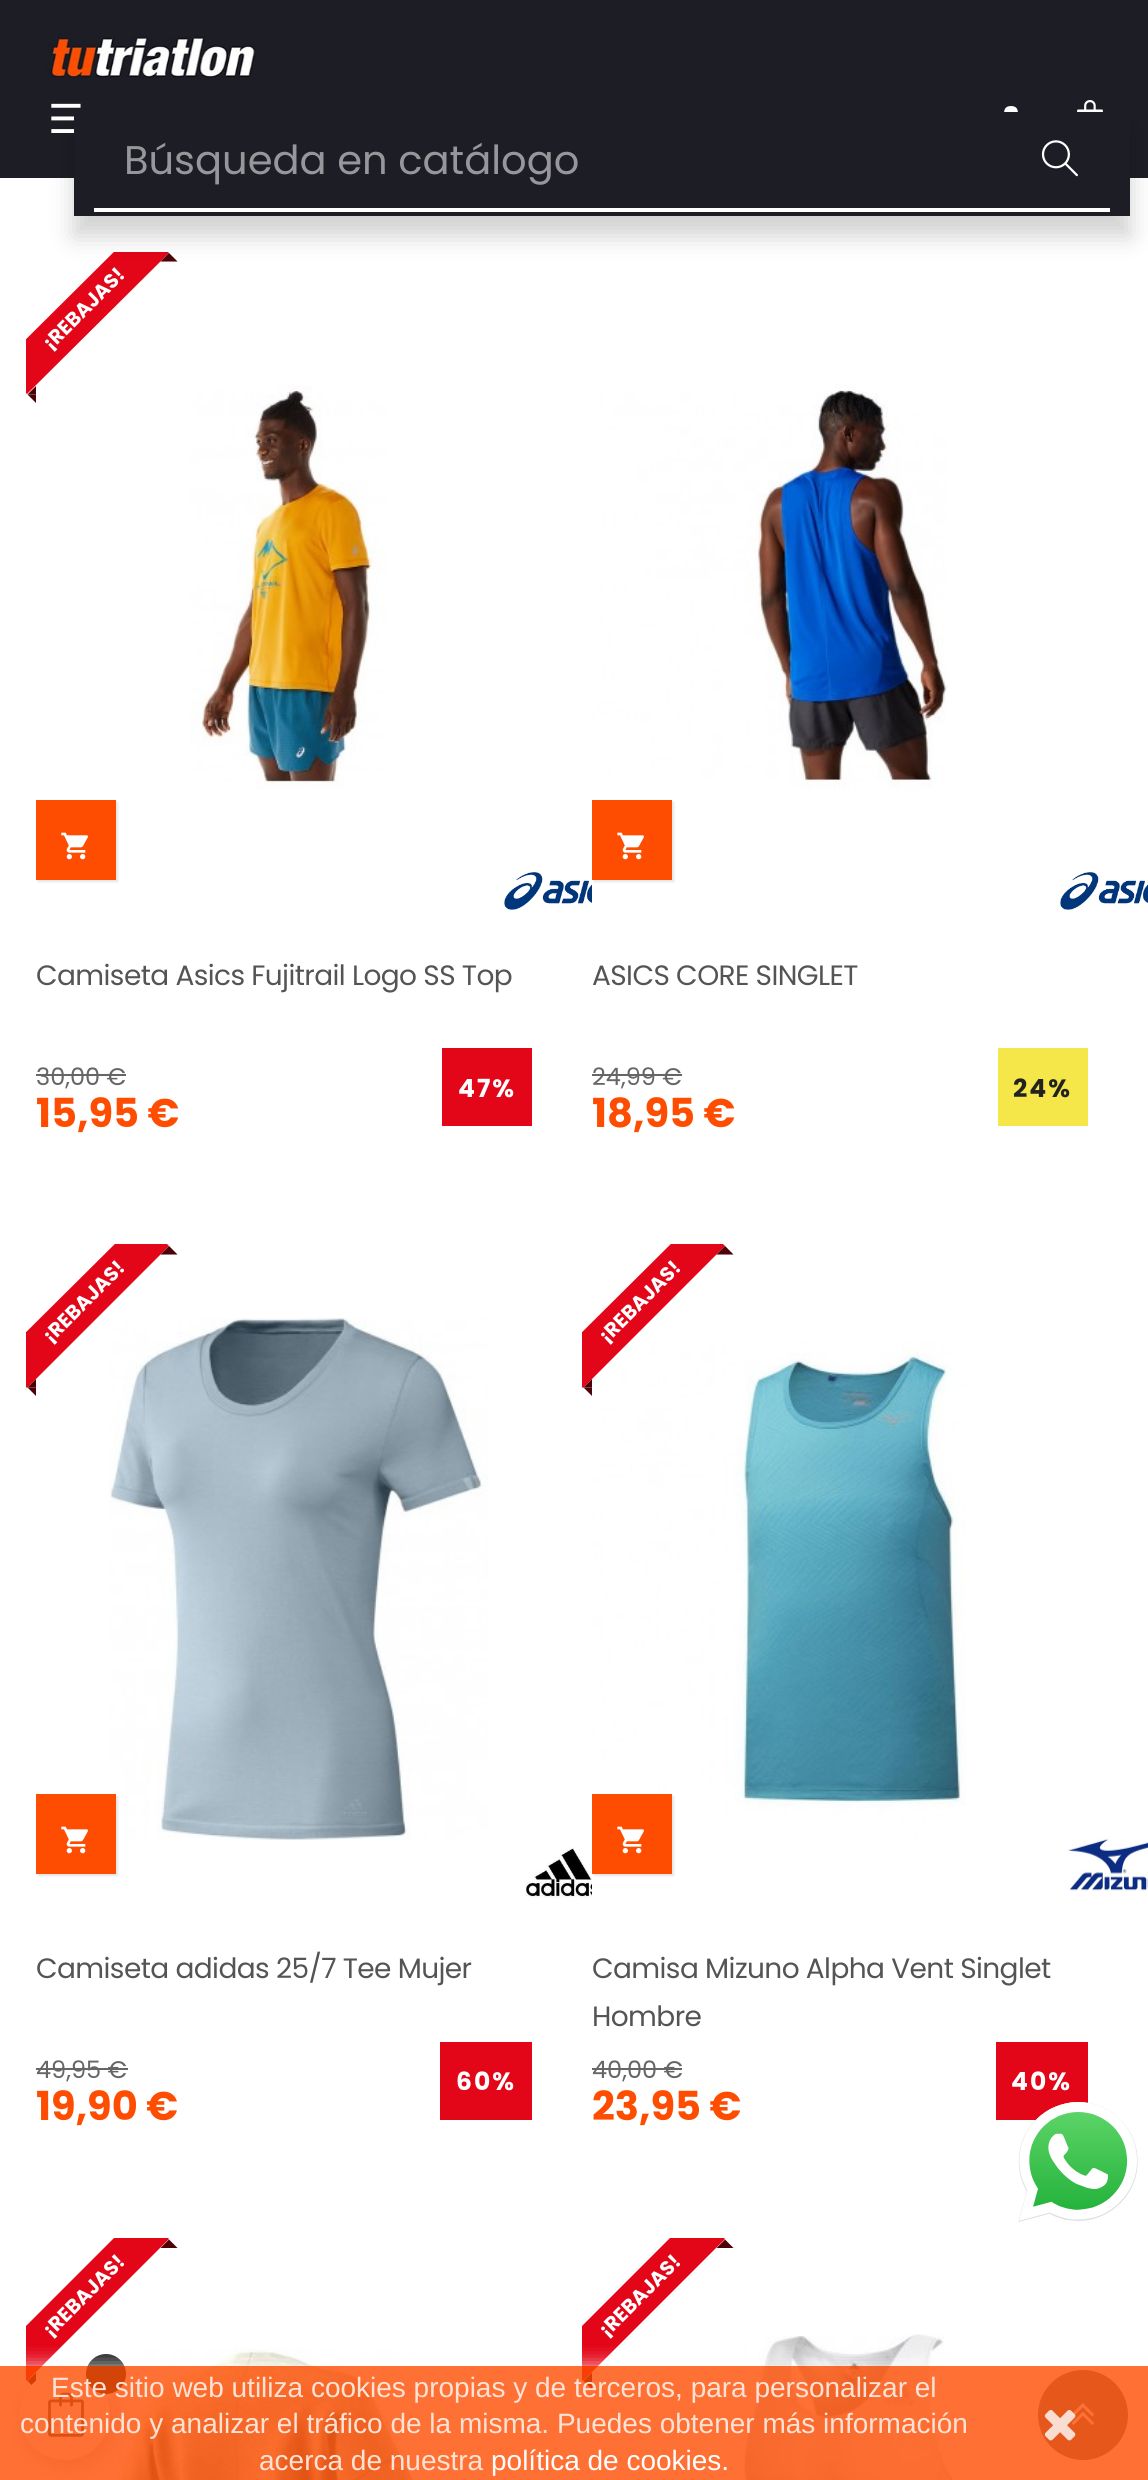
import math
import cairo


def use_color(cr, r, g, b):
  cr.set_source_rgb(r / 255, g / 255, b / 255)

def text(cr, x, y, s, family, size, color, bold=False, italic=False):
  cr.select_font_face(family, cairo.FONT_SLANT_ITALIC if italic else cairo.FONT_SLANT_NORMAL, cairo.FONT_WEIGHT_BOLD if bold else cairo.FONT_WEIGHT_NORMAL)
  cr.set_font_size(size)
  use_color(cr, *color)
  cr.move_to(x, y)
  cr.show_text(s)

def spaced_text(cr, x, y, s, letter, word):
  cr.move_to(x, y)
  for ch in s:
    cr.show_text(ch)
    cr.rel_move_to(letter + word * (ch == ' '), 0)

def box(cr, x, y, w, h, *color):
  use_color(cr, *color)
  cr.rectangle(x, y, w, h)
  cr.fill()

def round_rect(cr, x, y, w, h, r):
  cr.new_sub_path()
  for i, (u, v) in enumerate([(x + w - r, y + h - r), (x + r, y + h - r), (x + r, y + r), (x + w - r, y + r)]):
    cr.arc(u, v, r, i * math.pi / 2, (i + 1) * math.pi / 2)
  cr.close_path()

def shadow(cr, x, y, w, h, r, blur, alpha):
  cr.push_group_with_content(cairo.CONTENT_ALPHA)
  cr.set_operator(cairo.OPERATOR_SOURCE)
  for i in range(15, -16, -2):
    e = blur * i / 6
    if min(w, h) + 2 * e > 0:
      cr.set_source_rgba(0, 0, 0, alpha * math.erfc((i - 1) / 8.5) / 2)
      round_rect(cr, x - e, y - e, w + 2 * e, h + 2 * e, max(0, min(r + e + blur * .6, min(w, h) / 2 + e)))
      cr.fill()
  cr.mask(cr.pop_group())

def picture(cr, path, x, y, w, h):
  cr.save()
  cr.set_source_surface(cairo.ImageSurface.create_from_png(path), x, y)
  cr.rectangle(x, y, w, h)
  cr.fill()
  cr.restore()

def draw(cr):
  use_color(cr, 255, 255, 255)
  cr.paint()
  box(cr, 0, 0, 1148, 178, 29, 29, 37)
  picture(cr, "img_01.png", 46, 32, 210, 46)
  picture(cr, "img_02.png", 1004, 106, 14, 6)
  picture(cr, "img_03.png", 1077, 100, 26, 12)
  cr.save()
  cr.rectangle(26, 252, 520, 200)
  cr.clip()
  use_color(cr, 227, 5, 24)
  cr.new_path()
  cr.move_to(-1, 366)
  cr.line_to(141, 225)
  cr.line_to(169, 253)
  cr.line_to(27, 394)
  cr.close_path()
  cr.fill()
  cr.restore()
  use_color(cr, 77, 2, 8)
  cr.new_path()
  cr.move_to(160.5, 261.5)
  cr.line_to(169, 253)
  cr.line_to(169, 261.5)
  cr.close_path()
  cr.move_to(169, 253)
  cr.line_to(177.5, 261.5)
  cr.line_to(169, 261.5)
  cr.close_path()
  cr.fill()
  use_color(cr, 0, 0, 0)
  shadow(cr, 74, 132, 1056, 104, 0, 12, 0.18)
  use_color(cr, 77, 2, 8)
  cr.new_path()
  cr.move_to(27.5, 394.5)
  cr.line_to(36, 386)
  cr.line_to(36, 394.5)
  cr.close_path()
  cr.fill()
  cr.new_path()
  cr.move_to(36, 403)
  cr.line_to(27.5, 394.5)
  cr.line_to(36, 394.5)
  cr.close_path()
  cr.fill()
  picture(cr, "img_05.png", 190, 385, 198, 404)
  use_color(cr, 0, 0, 0)
  shadow(cr, 38, 802, 80, 80, 0, 1, 0.1)
  box(cr, 36, 800, 80, 80, 254, 77, 1)
  picture(cr, "img_06.png", 61, 832, 27, 28)
  picture(cr, "img_07.png", 504, 872, 120, 38)
  box(cr, 36, 1074, 90, 2, 102, 102, 102)
  box(cr, 442, 1048, 90, 78, 227, 5, 24)
  picture(cr, "img_08.png", 592, 384, 356, 520)
  use_color(cr, 0, 0, 0)
  shadow(cr, 594, 802, 80, 80, 0, 1, 0.1)
  box(cr, 592, 800, 80, 80, 254, 77, 1)
  picture(cr, "img_06.png", 617, 832, 27, 28)
  picture(cr, "img_09.png", 1060, 872, 88, 38)
  box(cr, 592, 1074, 90, 2, 102, 102, 102)
  box(cr, 998, 1048, 90, 78, 245, 230, 73)
  picture(cr, "img_10.png", 108, 1317, 380, 524)
  cr.save()
  cr.rectangle(26, 1244, 520, 200)
  cr.clip()
  use_color(cr, 227, 5, 24)
  cr.new_path()
  cr.move_to(-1, 1359)
  cr.line_to(141, 1218)
  cr.line_to(169, 1246)
  cr.line_to(27, 1388)
  cr.close_path()
  cr.fill()
  cr.restore()
  use_color(cr, 77, 2, 8)
  cr.new_path()
  cr.move_to(160.5, 1254.5)
  cr.line_to(169, 1246)
  cr.line_to(169, 1254.5)
  cr.close_path()
  cr.move_to(169, 1246)
  cr.line_to(177.5, 1254.5)
  cr.line_to(169, 1254.5)
  cr.close_path()
  cr.fill()
  cr.new_path()
  cr.move_to(27.5, 1387.5)
  cr.line_to(36, 1379)
  cr.line_to(36, 1387.5)
  cr.close_path()
  cr.fill()
  cr.new_path()
  cr.move_to(36, 1396)
  cr.line_to(27.5, 1387.5)
  cr.line_to(36, 1387.5)
  cr.close_path()
  cr.fill()
  use_color(cr, 0, 0, 0)
  shadow(cr, 38, 1796, 80, 80, 0, 1, 0.1)
  box(cr, 36, 1794, 80, 80, 254, 77, 1)
  picture(cr, "img_06.png", 61, 1826, 27, 28)
  picture(cr, "img_11.png", 526, 1847, 66, 51)
  box(cr, 36, 2068, 92, 2, 102, 102, 102)
  box(cr, 440, 2042, 92, 78, 227, 5, 24)
  picture(cr, "img_12.png", 592, 1342, 374, 556)
  cr.save()
  cr.rectangle(582, 1244, 520, 200)
  cr.clip()
  cr.new_path()
  cr.move_to(555, 1359)
  cr.line_to(697, 1218)
  cr.line_to(725, 1246)
  cr.line_to(583, 1388)
  cr.close_path()
  cr.fill()
  cr.restore()
  use_color(cr, 77, 2, 8)
  cr.new_path()
  cr.move_to(716.5, 1254.5)
  cr.line_to(725, 1246)
  cr.line_to(725, 1254.5)
  cr.close_path()
  cr.move_to(725, 1246)
  cr.line_to(733.5, 1254.5)
  cr.line_to(725, 1254.5)
  cr.close_path()
  cr.fill()
  cr.new_path()
  cr.move_to(583.5, 1387.5)
  cr.line_to(592, 1379)
  cr.line_to(592, 1387.5)
  cr.close_path()
  cr.fill()
  cr.new_path()
  cr.move_to(592, 1396)
  cr.line_to(583.5, 1387.5)
  cr.line_to(592, 1387.5)
  cr.close_path()
  cr.fill()
  use_color(cr, 0, 0, 0)
  shadow(cr, 594, 1796, 80, 80, 0, 1, 0.1)
  box(cr, 592, 1794, 80, 80, 254, 77, 1)
  picture(cr, "img_06.png", 617, 1826, 27, 28)
  picture(cr, "img_13.png", 1068, 1838, 80, 53)
  box(cr, 592, 2068, 90, 2, 102, 102, 102)
  box(cr, 996, 2042, 92, 78, 227, 5, 24)
  picture(cr, "img_14.png", 118, 2348, 299, 132)
  cr.save()
  cr.rectangle(26, 2238, 520, 200)
  cr.clip()
  cr.new_path()
  cr.move_to(-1, 2353)
  cr.line_to(141, 2211)
  cr.line_to(169, 2239)
  cr.line_to(27, 2381)
  cr.close_path()
  cr.fill()
  cr.restore()
  use_color(cr, 77, 2, 8)
  cr.new_path()
  cr.move_to(160.5, 2248)
  cr.line_to(169, 2239.5)
  cr.line_to(169, 2248)
  cr.close_path()
  cr.move_to(169, 2239.5)
  cr.line_to(177.5, 2248)
  cr.line_to(169, 2248)
  cr.close_path()
  cr.fill()
  cr.new_path()
  cr.move_to(27.5, 2381)
  cr.line_to(36, 2372.5)
  cr.line_to(36, 2381)
  cr.close_path()
  cr.move_to(36, 2389.5)
  cr.line_to(27.5, 2381)
  cr.line_to(36, 2381)
  cr.close_path()
  cr.fill()
  cr.save()
  cr.rectangle(582, 2238, 520, 200)
  cr.clip()
  use_color(cr, 227, 5, 24)
  cr.new_path()
  cr.move_to(555, 2353)
  cr.line_to(697, 2211)
  cr.line_to(725, 2239)
  cr.line_to(583, 2381)
  cr.close_path()
  cr.fill()
  cr.restore()
  cr.new_path()
  cr.move_to(716.5, 2248)
  cr.line_to(725, 2239.5)
  cr.line_to(725, 2248)
  cr.close_path()
  cr.move_to(725, 2239.5)
  cr.line_to(733.5, 2248)
  cr.line_to(725, 2248)
  cr.close_path()
  cr.fill()
  cr.new_path()
  cr.move_to(583.5, 2381)
  cr.line_to(592, 2372.5)
  cr.line_to(592, 2381)
  cr.close_path()
  cr.move_to(592, 2389.5)
  cr.line_to(583.5, 2381)
  cr.line_to(592, 2381)
  cr.close_path()
  cr.fill()
  picture(cr, "img_15.png", 744, 2334, 210, 146)
  use_color(cr, 128, 128, 128)
  cr.arc(1083, 2415, 45, 0, 2 * math.pi)
  cr.fill()
  picture(cr, "img_17.png", 1071, 2403, 23, 22)
  use_color(cr, 0, 0, 0)
  shadow(cr, 24, 2376, 90, 90, 45, 10, 0.15)
  use_color(cr, 255, 255, 255)
  cr.arc(65, 2415, 45, 0, 2 * math.pi)
  cr.fill()
  picture(cr, "img_19.png", 48, 2392, 36, 45)
  cr.arc(106, 2374, 22, 0, 2 * math.pi)
  cr.set_line_width(4)
  cr.stroke()
  use_color(cr, 34, 34, 34)
  cr.arc(106, 2374, 20, 0, 2 * math.pi)
  cr.fill()
  cr.save()
  cr.rectangle(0, 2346, 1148, 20)
  cr.clip()
  use_color(cr, 255, 255, 255)
  shadow(cr, 0, 2366, 1148, 114, 0, 10, 0.8)
  cr.restore()
  cr.set_source_rgba(0.996, 0.302, 0.004, 0.8)
  cr.rectangle(0, 2366, 1148, 114)
  cr.fill()
  picture(cr, "img_16.png", 1044, 2410, 32, 31)
  picture(cr, "img_18.png", 1018, 2102, 120, 120)
  text(cr, 48, 133, "☰", "DejaVu Sans", 40, (255, 255, 255))
  box(cr, 74, 116, 1056, 100, 29, 29, 37)
  box(cr, 94, 208, 1016, 4, 255, 255, 255)
  text(cr, 124, 174, "Búsqueda en catálogo", "Poppins", 40, (151, 151, 155))
  picture(cr, "img_04.png", 1041, 140, 37, 37)
  cr.save()
  cr.translate(51, 351)
  cr.rotate(-45 * math.pi / 180)
  text(cr, 0, 0, "¡REBAJAS!", "Poppins", 20, (255, 255, 255), bold=True)
  cr.restore()
  cr.select_font_face("Poppins")
  cr.set_font_size(28)
  use_color(cr, 84, 84, 84)
  spaced_text(cr, 36, 985, "Camiseta Asics Fujitrail Logo SS Top", -0.6, 0)
  text(cr, 36, 1085, "30,00 €", "Poppins", 24, (102, 102, 102))
  text(cr, 36, 1127, "15,95 €", "Poppins", 40, (254, 77, 1), bold=True)
  cr.set_font_size(25)
  use_color(cr, 255, 255, 255)
  spaced_text(cr, 458, 1097, "47%", 2, 0)
  cr.select_font_face("Poppins")
  cr.set_font_size(28)
  use_color(cr, 84, 84, 84)
  spaced_text(cr, 592, 985, "ASICS CORE SINGLET", -0.6, 0)
  text(cr, 592, 1085, "24,99 €", "Poppins", 24, (102, 102, 102))
  text(cr, 592, 1127, "18,95 €", "Poppins", 40, (254, 77, 1), bold=True)
  cr.set_font_size(25)
  use_color(cr, 34, 34, 34)
  spaced_text(cr, 1013, 1097, "24%", 2, 0)
  cr.save()
  cr.translate(51, 1344)
  cr.rotate(-45 * math.pi / 180)
  text(cr, 0, 0, "¡REBAJAS!", "Poppins", 20, (255, 255, 255), bold=True)
  cr.restore()
  cr.select_font_face("Poppins")
  cr.set_font_size(28)
  use_color(cr, 84, 84, 84)
  spaced_text(cr, 36, 1978, "Camiseta adidas 25/7 Tee Mujer", -0.6, 0)
  text(cr, 36, 2078, "49,95 €", "Poppins", 24, (102, 102, 102))
  text(cr, 36, 2120, "19,90 €", "Poppins", 40, (254, 77, 1), bold=True)
  cr.set_font_size(25)
  use_color(cr, 255, 255, 255)
  spaced_text(cr, 456, 2090, "60%", 2, 0)
  cr.save()
  cr.translate(607, 1344)
  cr.rotate(-45 * math.pi / 180)
  text(cr, 0, 0, "¡REBAJAS!", "Poppins", 20, (255, 255, 255), bold=True)
  cr.restore()
  cr.select_font_face("Poppins")
  cr.set_font_size(28)
  use_color(cr, 84, 84, 84)
  spaced_text(cr, 592, 1978, "Camisa Mizuno Alpha Vent Singlet", -0.6, 0)
  spaced_text(cr, 592, 2026, "Hombre", -0.6, 0)
  text(cr, 592, 2078, "40,00 €", "Poppins", 24, (102, 102, 102))
  text(cr, 592, 2120, "23,95 €", "Poppins", 40, (254, 77, 1), bold=True)
  cr.set_font_size(25)
  use_color(cr, 255, 255, 255)
  spaced_text(cr, 1011, 2090, "40%", 2, 0)
  cr.save()
  cr.translate(51, 2338)
  cr.rotate(-45 * math.pi / 180)
  text(cr, 0, 0, "¡REBAJAS!", "Poppins", 20, (255, 255, 255), bold=True)
  cr.restore()
  cr.save()
  cr.translate(607, 2338)
  cr.rotate(-45 * math.pi / 180)
  text(cr, 0, 0, "¡REBAJAS!", "Poppins", 20, (255, 255, 255), bold=True)
  cr.restore()
  text(cr, 51, 2397, "Este sitio web utiliza cookies propias y de terceros, para personalizar el", "Liberation Sans", 28, (254, 226, 213))
  text(cr, 20, 2433, "contenido y analizar el tráfico de la misma. Puedes obtener más información", "Liberation Sans", 28, (254, 226, 213))
  text(cr, 259, 2470, "acerca de nuestra", "Liberation Sans", 28, (254, 226, 213))
  text(cr, 491, 2470, "política de cookies.", "Liberation Sans", 28, (255, 255, 255))


surface = cairo.ImageSurface(cairo.FORMAT_RGB24, 1148, 2480)
cr = cairo.Context(surface)
options = cairo.FontOptions()
options.set_hint_metrics(cairo.HINT_METRICS_OFF)
options.set_hint_style(cairo.HINT_STYLE_NONE)
cr.set_font_options(options)
cr.set_miter_limit(4)
draw(cr)
surface.write_to_png("out.png")
